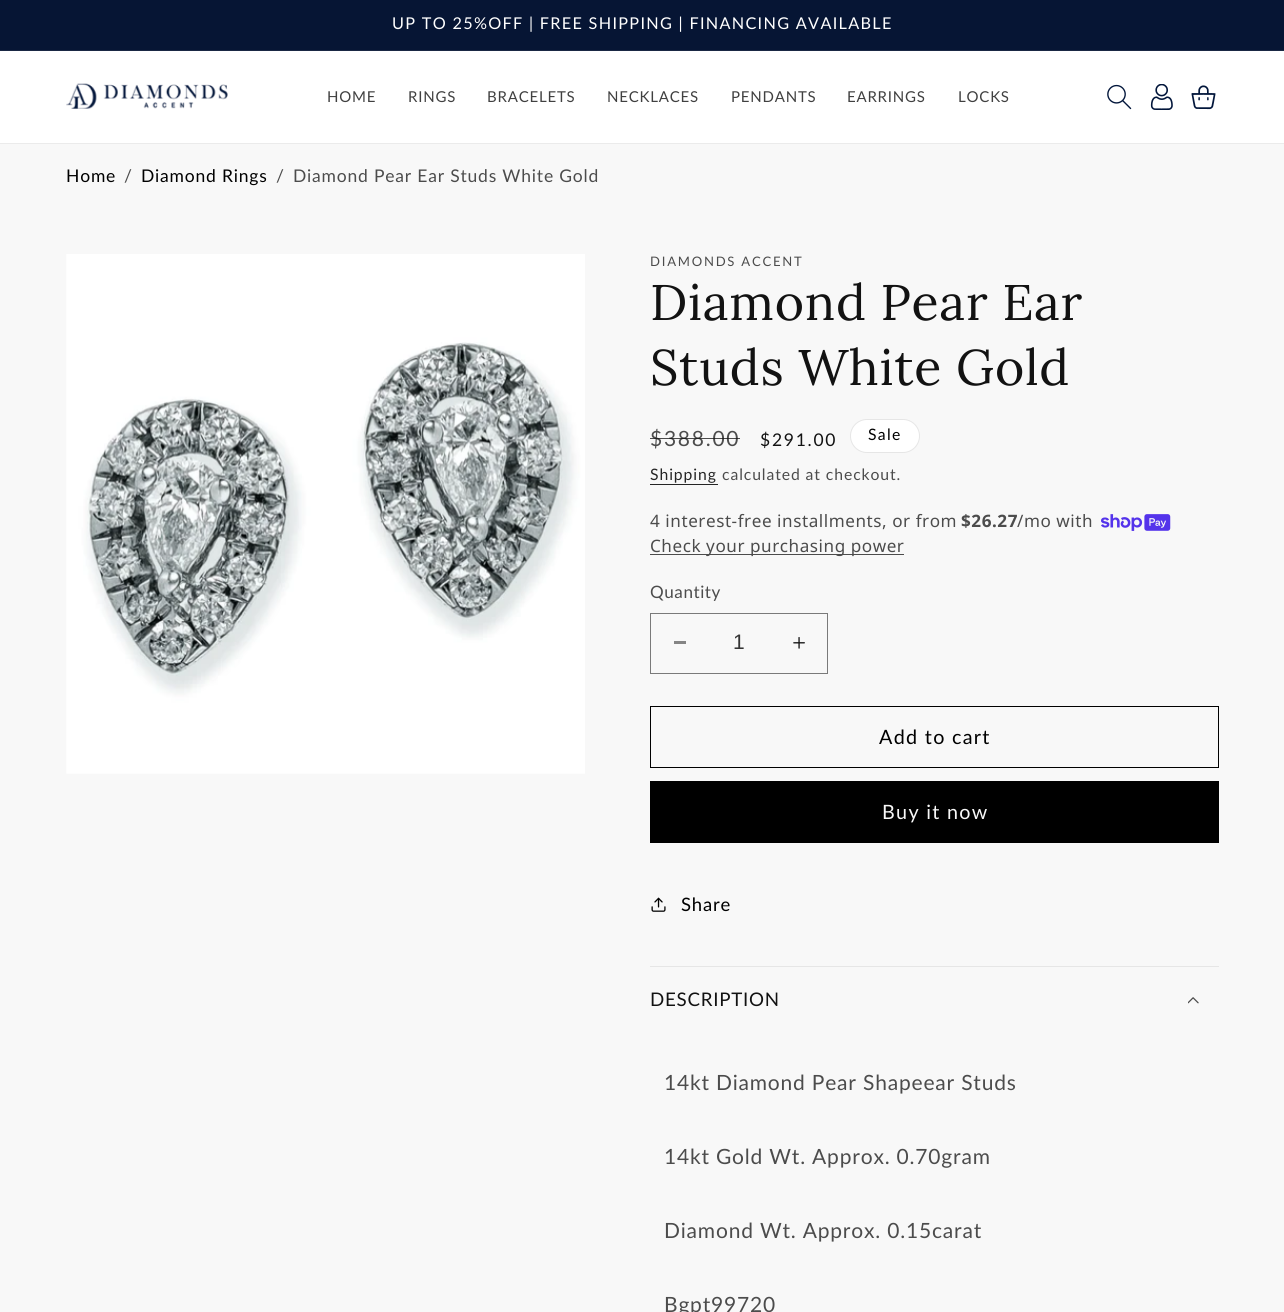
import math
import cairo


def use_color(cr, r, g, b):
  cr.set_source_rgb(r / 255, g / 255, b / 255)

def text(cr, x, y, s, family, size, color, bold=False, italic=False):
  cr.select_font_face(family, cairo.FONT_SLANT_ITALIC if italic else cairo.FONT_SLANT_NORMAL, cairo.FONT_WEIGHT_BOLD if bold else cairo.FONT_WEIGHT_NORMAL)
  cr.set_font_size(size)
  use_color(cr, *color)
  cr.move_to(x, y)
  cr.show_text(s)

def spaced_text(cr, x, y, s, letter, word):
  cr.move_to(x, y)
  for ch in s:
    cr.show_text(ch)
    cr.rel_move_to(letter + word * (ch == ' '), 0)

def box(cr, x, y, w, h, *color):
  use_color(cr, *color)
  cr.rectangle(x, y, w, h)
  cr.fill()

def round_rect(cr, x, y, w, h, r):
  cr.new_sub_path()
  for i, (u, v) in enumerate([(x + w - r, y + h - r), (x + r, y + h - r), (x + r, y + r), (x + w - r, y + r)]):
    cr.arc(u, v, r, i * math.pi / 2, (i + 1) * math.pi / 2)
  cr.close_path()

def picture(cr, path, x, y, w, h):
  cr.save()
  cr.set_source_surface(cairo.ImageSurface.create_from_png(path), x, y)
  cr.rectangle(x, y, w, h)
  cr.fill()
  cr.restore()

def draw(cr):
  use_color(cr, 248, 248, 248)
  cr.paint()
  box(cr, 0, 0, 1284, 50, 6, 21, 52)
  box(cr, 0, 50, 1284, 1, 26, 40, 68)
  box(cr, 0, 51, 1284, 92, 255, 255, 255)
  box(cr, 0, 143, 1284, 1, 235, 235, 235)
  picture(cr, "img_01.png", 66, 83, 162, 26)
  picture(cr, "img_02.png", 1107, 84, 25, 26)
  picture(cr, "img_03.png", 1150, 84, 23, 26)
  picture(cr, "img_04.png", 1191, 85, 25, 25)
  picture(cr, "img_05.png", 66, 254, 519, 520)
  use_color(cr, 255, 255, 255)
  round_rect(cr, 850, 419, 70, 34, 17)
  cr.fill()
  round_rect(cr, 850.5, 419.5, 69, 33, 16.5)
  cr.set_source_rgba(0, 0, 0, 0.1)
  cr.set_line_width(1)
  cr.stroke()
  box(cr, 650, 484, 68, 1, 37, 37, 37)
  picture(cr, "img_06.png", 1101, 514, 70, 17)
  box(cr, 650, 554, 254, 1, 76, 76, 76)
  box(cr, 674, 641, 12, 3, 133, 133, 133)
  picture(cr, "img_07.png", 793, 637, 12, 12)
  cr.rectangle(650.5, 613.5, 177, 60)
  use_color(cr, 122, 122, 122)
  cr.stroke()
  cr.rectangle(650.5, 706.5, 568, 61)
  use_color(cr, 0, 0, 0)
  cr.stroke()
  box(cr, 650, 781, 569, 62, 0, 0, 0)
  picture(cr, "img_08.png", 651, 897, 15, 15)
  box(cr, 650, 966, 569, 1, 230, 230, 230)
  picture(cr, "img_09.png", 1188, 997, 11, 7)
  cr.select_font_face("Lato")
  cr.set_font_size(16.25)
  use_color(cr, 255, 255, 255)
  spaced_text(cr, 392, 29, "UP TO 25%OFF | FREE SHIPPING | FINANCING AVAILABLE", 1.3, 0)
  cr.set_font_size(15)
  use_color(cr, 64, 64, 64)
  spaced_text(cr, 327, 102, "HOME", 0.8, 0)
  spaced_text(cr, 408, 102, "RINGS", 0.8, 0)
  spaced_text(cr, 487, 102, "BRACELETS", 0.8, 0)
  spaced_text(cr, 607, 102, "NECKLACES", 0.8, 0)
  spaced_text(cr, 731, 102, "PENDANTS", 0.8, 0)
  spaced_text(cr, 847, 102, "EARRINGS", 0.8, 0)
  spaced_text(cr, 958, 102, "LOCKS", 0.8, 0)
  cr.set_font_size(17.5)
  use_color(cr, 0, 0, 0)
  spaced_text(cr, 66, 182, "Home", 0.8, 0)
  use_color(cr, 76, 76, 76)
  spaced_text(cr, 124, 182, "/", 0.8, 0)
  use_color(cr, 0, 0, 0)
  spaced_text(cr, 141, 182, "Diamond Rings", 0.8, 0)
  use_color(cr, 76, 76, 76)
  spaced_text(cr, 276, 182, "/", 0.8, 0)
  spaced_text(cr, 293, 182, "Diamond Pear Ear Studs White Gold", 0.8, 0)
  cr.set_font_size(13.1)
  spaced_text(cr, 650, 266, "DIAMONDS ACCENT", 1.75, 0)
  cr.select_font_face("Lora")
  cr.set_font_size(50)
  use_color(cr, 18, 18, 18)
  spaced_text(cr, 650, 320, "Diamond Pear Ear", 0.75, 0)
  spaced_text(cr, 650, 385, "Studs White Gold", 0.75, 0)
  cr.select_font_face("Lato")
  cr.set_font_size(21)
  use_color(cr, 76, 76, 76)
  spaced_text(cr, 650, 446, "$388.00", 1.75, 0)
  cr.set_source_rgba(0.071, 0.071, 0.071, 0.75)
  cr.rectangle(650, 438, 90, 1)
  cr.fill()
  cr.set_font_size(17.5)
  use_color(cr, 18, 18, 18)
  spaced_text(cr, 760, 446, "$291.00", 1.75, 0)
  cr.set_font_size(15.75)
  use_color(cr, 0, 0, 0)
  spaced_text(cr, 868, 440, "Sale", 1.3, 0)
  use_color(cr, 37, 37, 37)
  spaced_text(cr, 650, 480, "Shipping", 0.9, 0)
  use_color(cr, 76, 76, 76)
  spaced_text(cr, 722, 480, "calculated at checkout.", 0.9, 0)
  cr.select_font_face("Noto Sans")
  cr.set_font_size(17.1)
  spaced_text(cr, 650, 527, "4 interest-free installments, or from", 0.55, 0)
  cr.select_font_face("Noto Sans", cairo.FONT_SLANT_NORMAL, cairo.FONT_WEIGHT_BOLD)
  spaced_text(cr, 961, 527, "$26.27", 0.55, 0)
  cr.select_font_face("Noto Sans")
  spaced_text(cr, 1017, 527, "/mo with", 0.55, 0)
  spaced_text(cr, 650, 552, "Check your purchasing power", 0.55, 0)
  cr.select_font_face("Lato")
  spaced_text(cr, 650, 598, "Quantity", 0.55, 0)
  text(cr, 733, 649, "1", "Liberation Sans", 21, (53, 53, 53))
  cr.select_font_face("Lato")
  cr.set_font_size(19.75)
  use_color(cr, 0, 0, 0)
  spaced_text(cr, 879, 744, "Add to cart", 1.3, 0)
  use_color(cr, 248, 248, 248)
  spaced_text(cr, 882, 819, "Buy it now", 1.3, 0)
  cr.set_font_size(18.5)
  use_color(cr, 0, 0, 0)
  spaced_text(cr, 681, 911, "Share", 0.8, 0)
  cr.set_font_size(18.75)
  use_color(cr, 18, 18, 18)
  spaced_text(cr, 650, 1006, "DESCRIPTION", 0.75, 0)
  cr.set_font_size(21)
  use_color(cr, 76, 76, 76)
  spaced_text(cr, 664, 1090, "14kt Diamond Pear Shapeear Studs", 0.8, 0)
  spaced_text(cr, 664, 1164, "14kt Gold Wt. Approx. 0.70gram", 0.8, 0)
  spaced_text(cr, 664, 1238, "Diamond Wt. Approx. 0.15carat", 0.8, 0)
  spaced_text(cr, 664, 1312, "Bgpt99720", 0.8, 0)


surface = cairo.ImageSurface(cairo.FORMAT_RGB24, 1284, 1312)
cr = cairo.Context(surface)
options = cairo.FontOptions()
options.set_hint_metrics(cairo.HINT_METRICS_OFF)
options.set_hint_style(cairo.HINT_STYLE_NONE)
cr.set_font_options(options)
cr.set_miter_limit(4)
draw(cr)
surface.write_to_png("out.png")
